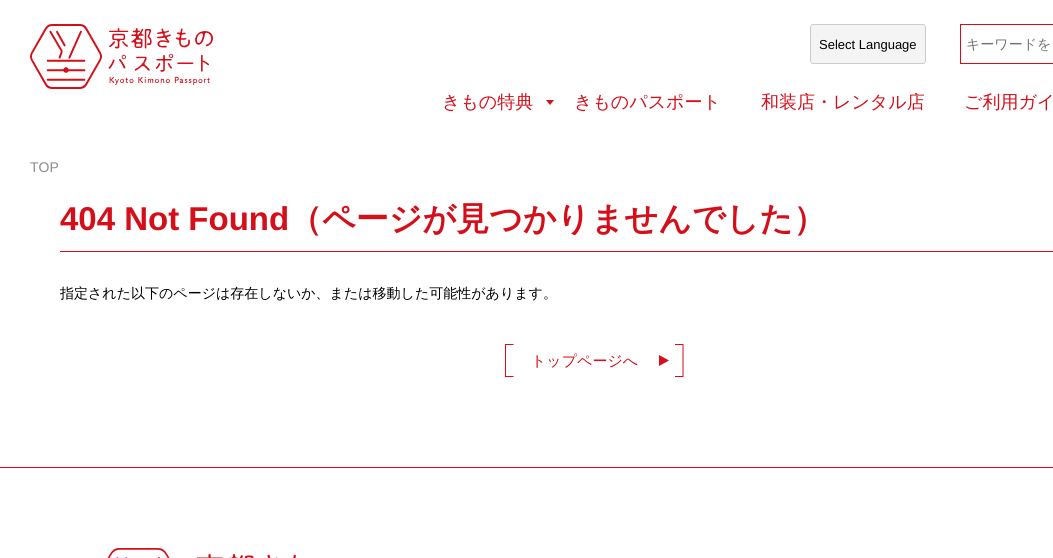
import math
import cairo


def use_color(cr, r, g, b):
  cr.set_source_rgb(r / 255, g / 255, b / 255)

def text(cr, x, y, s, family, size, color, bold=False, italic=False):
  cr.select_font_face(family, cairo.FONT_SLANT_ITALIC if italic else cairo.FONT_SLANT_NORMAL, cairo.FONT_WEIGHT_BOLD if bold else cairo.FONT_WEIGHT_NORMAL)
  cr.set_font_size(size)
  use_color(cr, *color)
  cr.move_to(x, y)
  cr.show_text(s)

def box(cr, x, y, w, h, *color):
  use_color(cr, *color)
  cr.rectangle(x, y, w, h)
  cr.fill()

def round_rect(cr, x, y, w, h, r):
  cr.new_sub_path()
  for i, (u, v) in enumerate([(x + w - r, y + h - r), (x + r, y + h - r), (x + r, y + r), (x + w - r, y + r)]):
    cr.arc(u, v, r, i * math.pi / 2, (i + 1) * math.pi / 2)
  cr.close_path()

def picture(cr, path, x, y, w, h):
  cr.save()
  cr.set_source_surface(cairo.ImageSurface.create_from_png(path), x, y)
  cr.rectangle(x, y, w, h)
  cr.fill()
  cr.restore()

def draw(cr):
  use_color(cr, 255, 255, 255)
  cr.paint()
  picture(cr, "img_01.png", 30, 24, 183, 65)
  use_color(cr, 244, 244, 244)
  round_rect(cr, 810.5, 24.5, 115, 39, 2.5)
  cr.fill_preserve()
  use_color(cr, 204, 204, 204)
  cr.set_line_width(1)
  cr.stroke()
  cr.rectangle(960.5, 24.5, 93, 39)
  use_color(cr, 213, 15, 25)
  cr.stroke()
  cr.new_path()
  cr.move_to(550, 105)
  cr.line_to(546, 100)
  cr.line_to(554, 100)
  cr.close_path()
  cr.fill()
  box(cr, 60, 251, 993, 1, 213, 15, 25)
  cr.new_path()
  cr.move_to(513.5, 344.5)
  cr.line_to(505.5, 344.5)
  cr.line_to(505.5, 376.5)
  cr.line_to(513.5, 376.5)
  cr.stroke()
  cr.new_path()
  cr.move_to(669, 360.5)
  cr.line_to(659, 366)
  cr.line_to(659, 355)
  cr.close_path()
  cr.fill()
  cr.new_path()
  cr.move_to(675, 376.5)
  cr.line_to(683, 376.5)
  cr.line_to(683, 344.5)
  cr.line_to(675, 344.5)
  cr.stroke()
  box(cr, 0, 467, 1053, 1, 213, 15, 25)
  picture(cr, "img_02.png", 107, 548, 189, 10)
  text(cr, 819, 49, "Select Language", "Liberation Sans", 13, (0, 0, 0))
  text(cr, 966, 49, "キーワードを", "WenQuanYi Zen Hei Medium", 14, (117, 117, 117))
  text(cr, 442, 108, "きもの特典", "WenQuanYi Zen Hei Medium", 18, (213, 15, 25))
  text(cr, 574, 108, "きものパスポート", "WenQuanYi Zen Hei Medium", 18, (213, 15, 25))
  text(cr, 761, 108, "和装店・レンタル店", "WenQuanYi Zen Hei Medium", 18, (213, 15, 25))
  text(cr, 964, 108, "ご利用ガイ", "WenQuanYi Zen Hei Medium", 18, (213, 15, 25))
  text(cr, 30, 172, "TOP", "Liberation Sans", 14, (141, 141, 141))
  text(cr, 60, 230, "404 Not Found", "Liberation Sans", 33, (213, 15, 25), bold=True)
  text(cr, 289, 230, "（ページが見つかりませんでした）", "WenQuanYi Zen Hei", 33, (213, 15, 25), bold=True)
  text(cr, 60, 298, "指定された以下のページは存在しないか、または移動した可能性があります。", "WenQuanYi Zen Hei Medium", 14, (0, 0, 0))
  text(cr, 531, 366, "トップページへ", "WenQuanYi Zen Hei Medium", 15, (213, 15, 25))


surface = cairo.ImageSurface(cairo.FORMAT_RGB24, 1053, 558)
cr = cairo.Context(surface)
options = cairo.FontOptions()
options.set_hint_metrics(cairo.HINT_METRICS_OFF)
options.set_hint_style(cairo.HINT_STYLE_NONE)
cr.set_font_options(options)
cr.set_miter_limit(4)
draw(cr)
surface.write_to_png("out.png")
